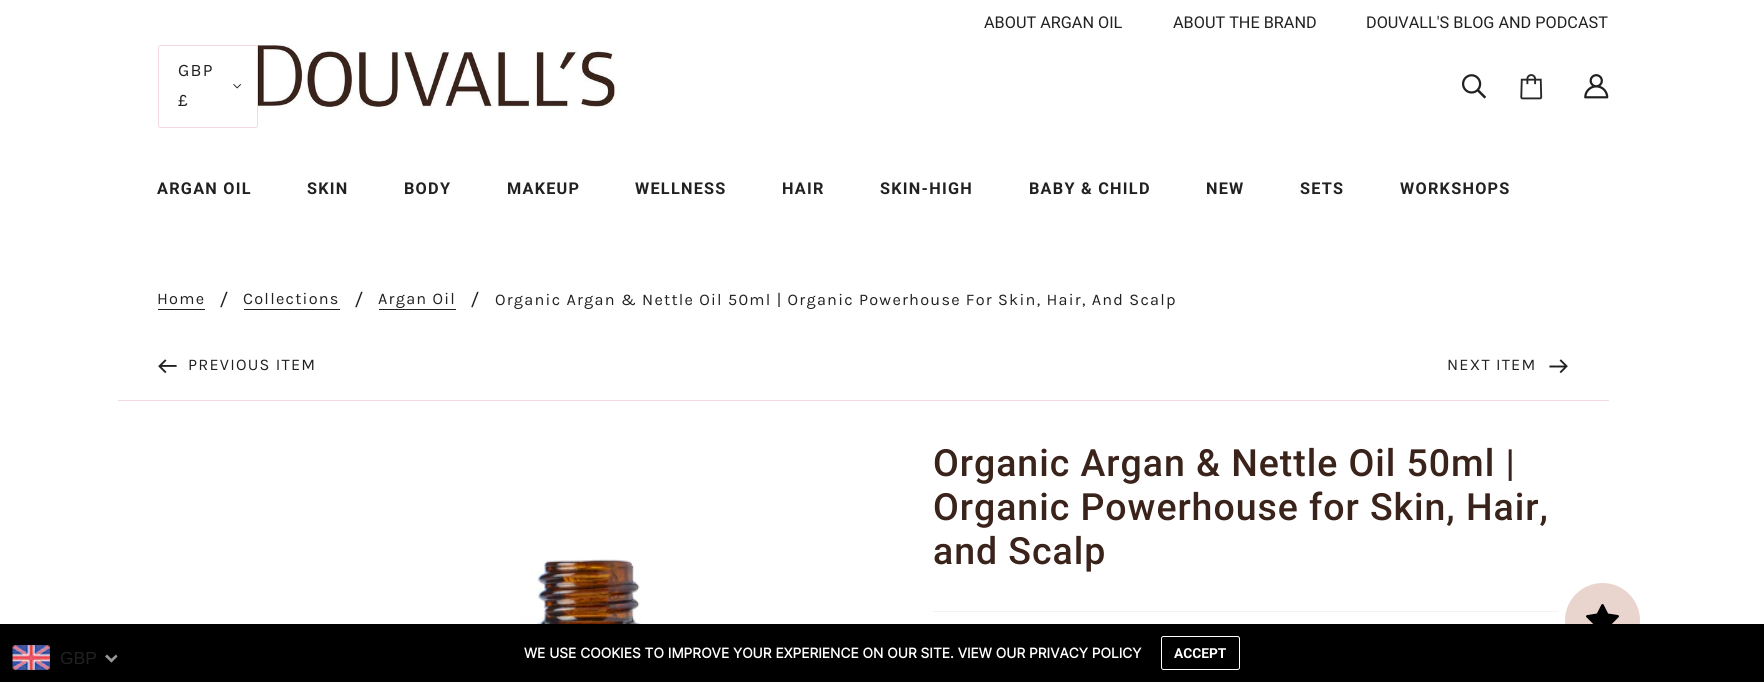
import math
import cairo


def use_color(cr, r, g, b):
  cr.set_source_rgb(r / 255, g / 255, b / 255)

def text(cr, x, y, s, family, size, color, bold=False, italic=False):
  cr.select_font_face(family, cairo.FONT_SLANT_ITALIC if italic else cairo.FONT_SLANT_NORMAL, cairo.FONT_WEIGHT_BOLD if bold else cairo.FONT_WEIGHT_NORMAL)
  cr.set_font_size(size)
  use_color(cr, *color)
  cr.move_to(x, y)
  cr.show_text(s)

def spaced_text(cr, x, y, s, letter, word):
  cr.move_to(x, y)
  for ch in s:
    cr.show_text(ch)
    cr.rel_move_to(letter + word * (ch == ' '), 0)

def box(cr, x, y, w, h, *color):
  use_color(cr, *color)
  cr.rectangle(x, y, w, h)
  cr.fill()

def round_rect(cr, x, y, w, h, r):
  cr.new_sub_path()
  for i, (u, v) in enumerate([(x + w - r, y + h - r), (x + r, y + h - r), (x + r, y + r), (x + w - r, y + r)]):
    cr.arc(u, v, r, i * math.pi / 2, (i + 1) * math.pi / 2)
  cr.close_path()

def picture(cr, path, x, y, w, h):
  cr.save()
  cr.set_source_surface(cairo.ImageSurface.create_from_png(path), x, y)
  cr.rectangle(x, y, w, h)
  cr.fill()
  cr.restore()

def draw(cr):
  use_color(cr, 255, 255, 255)
  cr.paint()
  picture(cr, "img_02.png", 257, 45, 359, 63)
  use_color(cr, 255, 255, 255)
  round_rect(cr, 158.5, 45.5, 99, 82, 2)
  cr.fill_preserve()
  use_color(cr, 243, 218, 224)
  cr.set_line_width(1)
  cr.stroke()
  picture(cr, "img_01.png", 233, 84, 8, 5)
  picture(cr, "img_03.png", 1462, 74, 24, 25)
  picture(cr, "img_04.png", 1520, 74, 23, 26)
  picture(cr, "img_05.png", 1584, 74, 25, 25)
  box(cr, 158, 309, 47, 1, 33, 33, 33)
  box(cr, 244, 309, 96, 1, 33, 33, 33)
  box(cr, 379, 309, 77, 1, 33, 33, 33)
  box(cr, 118, 400, 1491, 1, 243, 218, 224)
  picture(cr, "img_06.png", 158, 359, 19, 15)
  picture(cr, "img_07.png", 1549, 359, 19, 15)
  box(cr, 933, 611, 626, 1, 243, 243, 243)
  picture(cr, "img_08.png", 506, 559, 163, 65)
  use_color(cr, 233, 213, 205)
  cr.arc(1602.5, 620.5, 37.5, 0, 2 * math.pi)
  cr.fill()
  box(cr, 0, 624, 1764, 58, 0, 0, 0)
  picture(cr, "img_09.png", 12, 645, 38, 25)
  use_color(cr, 153, 153, 153)
  cr.new_path()
  cr.move_to(116, 654.5)
  cr.line_to(117.5, 656.5)
  cr.line_to(111.5, 662.5)
  cr.line_to(109.5, 660.5)
  cr.close_path()
  cr.fill()
  cr.new_path()
  cr.move_to(107, 654.5)
  cr.line_to(113, 660.5)
  cr.line_to(111.5, 662.5)
  cr.line_to(105, 656.5)
  cr.close_path()
  cr.fill()
  round_rect(cr, 1161.5, 636.5, 78, 33, 2)
  use_color(cr, 255, 255, 255)
  cr.stroke()
  picture(cr, "img_10.png", 1586, 604, 33, 20)
  text(cr, 984, 28, "ABOUT ARGAN OIL", "Roboto", 16.25, (33, 33, 33))
  text(cr, 1173, 28, "ABOUT THE BRAND", "Roboto", 16.25, (33, 33, 33))
  text(cr, 1366, 28, "DOUVALL'S BLOG AND PODCAST", "Roboto", 16.25, (33, 33, 33))
  cr.select_font_face("Karla")
  cr.set_font_size(17.5)
  spaced_text(cr, 178, 76, "GBP", 1.25, 0)
  spaced_text(cr, 178, 106, "£", 1.25, 0)
  cr.select_font_face("Roboto", cairo.FONT_SLANT_NORMAL, cairo.FONT_WEIGHT_BOLD)
  cr.set_font_size(16.25)
  spaced_text(cr, 157, 194, "ARGAN OIL", 1.25, 0)
  spaced_text(cr, 307, 194, "SKIN", 1.25, 0)
  spaced_text(cr, 404, 194, "BODY", 1.25, 0)
  spaced_text(cr, 507, 194, "MAKEUP", 1.25, 0)
  spaced_text(cr, 635, 194, "WELLNESS", 1.25, 0)
  spaced_text(cr, 782, 194, "HAIR", 1.25, 0)
  spaced_text(cr, 880, 194, "SKIN-HIGH", 1.25, 0)
  spaced_text(cr, 1029, 194, "BABY & CHILD", 1.25, 0)
  spaced_text(cr, 1206, 194, "NEW", 1.25, 0)
  spaced_text(cr, 1300, 194, "SETS", 1.25, 0)
  spaced_text(cr, 1400, 194, "WORKSHOPS", 1.25, 0)
  cr.select_font_face("Karla")
  spaced_text(cr, 157, 304, "Home", 1.25, 0)
  text(cr, 220, 306, "/", "Roboto", 20, (33, 33, 33))
  cr.select_font_face("Karla")
  cr.set_font_size(16.25)
  spaced_text(cr, 243, 304, "Collections", 1.25, 0)
  text(cr, 355, 306, "/", "Roboto", 20, (33, 33, 33))
  cr.select_font_face("Karla")
  cr.set_font_size(16.25)
  spaced_text(cr, 378, 304, "Argan Oil", 1.25, 0)
  text(cr, 471, 306, "/", "Roboto", 20, (33, 33, 33))
  cr.select_font_face("Karla")
  cr.set_font_size(16.25)
  spaced_text(cr, 495, 305, "Organic Argan & Nettle Oil 50ml | Organic Powerhouse For Skin, Hair, And Scalp", 1.25, 0)
  spaced_text(cr, 188, 370, "PREVIOUS ITEM", 1.25, 0)
  spaced_text(cr, 1447, 370, "NEXT ITEM", 1.25, 0)
  cr.select_font_face("Roboto Medium")
  cr.set_font_size(37.5)
  use_color(cr, 58, 35, 27)
  spaced_text(cr, 933, 476, "Organic Argan & Nettle Oil 50ml |", 0.95, 0)
  spaced_text(cr, 933, 520, "Organic Powerhouse for Skin, Hair,", 0.95, 0)
  spaced_text(cr, 933, 564, "and Scalp", 0.95, 0)
  text(cr, 60, 664, "GBP", "Liberation Sans", 17.5, (33, 33, 33))
  text(cr, 524, 658, "WE USE COOKIES TO IMPROVE YOUR EXPERIENCE ON OUR SITE. VIEW OUR PRIVACY POLICY", "Inter", 13.75, (255, 255, 255), bold=True)
  text(cr, 1174, 658, "ACCEPT", "Roboto", 13.75, (255, 255, 255), bold=True)


surface = cairo.ImageSurface(cairo.FORMAT_RGB24, 1764, 682)
cr = cairo.Context(surface)
options = cairo.FontOptions()
options.set_hint_metrics(cairo.HINT_METRICS_OFF)
options.set_hint_style(cairo.HINT_STYLE_NONE)
cr.set_font_options(options)
cr.set_miter_limit(4)
draw(cr)
surface.write_to_png("out.png")
